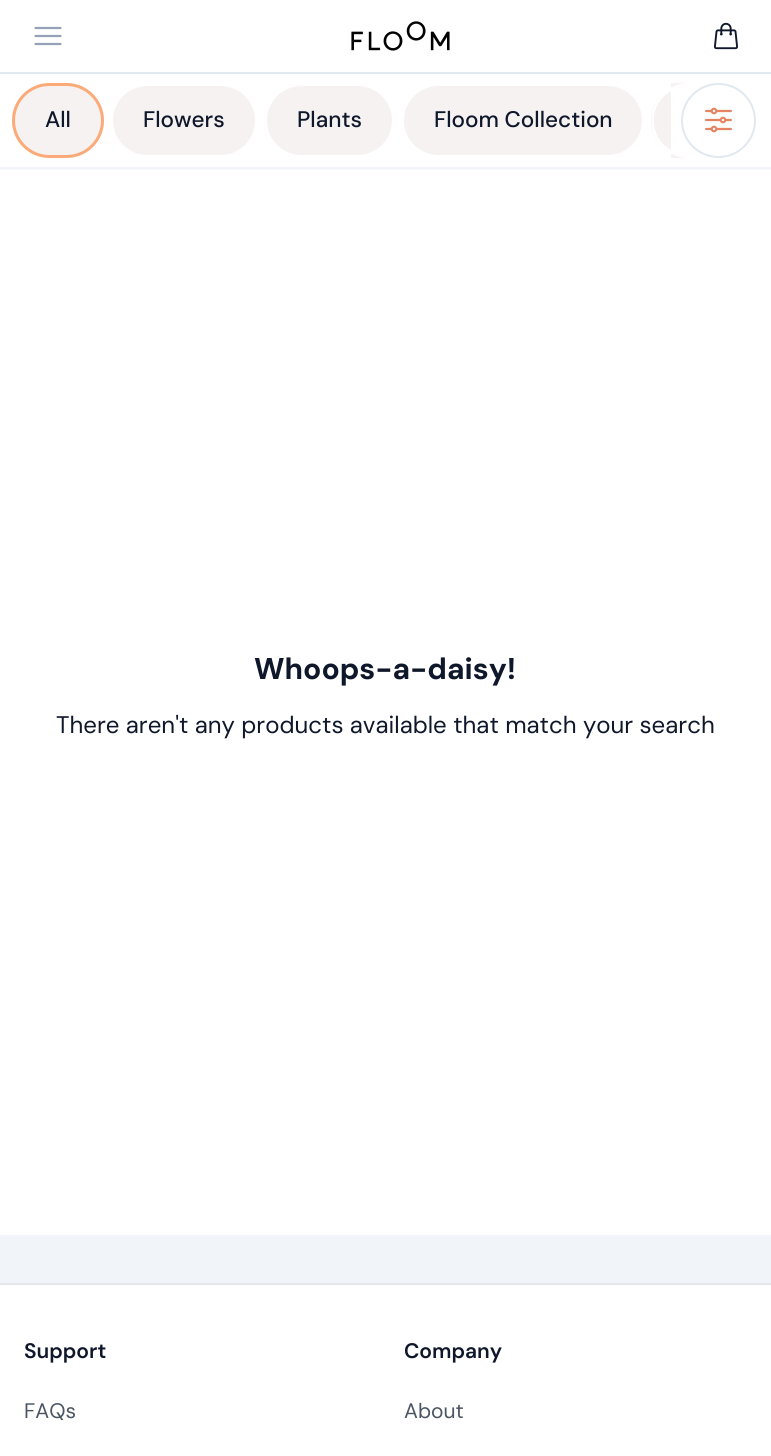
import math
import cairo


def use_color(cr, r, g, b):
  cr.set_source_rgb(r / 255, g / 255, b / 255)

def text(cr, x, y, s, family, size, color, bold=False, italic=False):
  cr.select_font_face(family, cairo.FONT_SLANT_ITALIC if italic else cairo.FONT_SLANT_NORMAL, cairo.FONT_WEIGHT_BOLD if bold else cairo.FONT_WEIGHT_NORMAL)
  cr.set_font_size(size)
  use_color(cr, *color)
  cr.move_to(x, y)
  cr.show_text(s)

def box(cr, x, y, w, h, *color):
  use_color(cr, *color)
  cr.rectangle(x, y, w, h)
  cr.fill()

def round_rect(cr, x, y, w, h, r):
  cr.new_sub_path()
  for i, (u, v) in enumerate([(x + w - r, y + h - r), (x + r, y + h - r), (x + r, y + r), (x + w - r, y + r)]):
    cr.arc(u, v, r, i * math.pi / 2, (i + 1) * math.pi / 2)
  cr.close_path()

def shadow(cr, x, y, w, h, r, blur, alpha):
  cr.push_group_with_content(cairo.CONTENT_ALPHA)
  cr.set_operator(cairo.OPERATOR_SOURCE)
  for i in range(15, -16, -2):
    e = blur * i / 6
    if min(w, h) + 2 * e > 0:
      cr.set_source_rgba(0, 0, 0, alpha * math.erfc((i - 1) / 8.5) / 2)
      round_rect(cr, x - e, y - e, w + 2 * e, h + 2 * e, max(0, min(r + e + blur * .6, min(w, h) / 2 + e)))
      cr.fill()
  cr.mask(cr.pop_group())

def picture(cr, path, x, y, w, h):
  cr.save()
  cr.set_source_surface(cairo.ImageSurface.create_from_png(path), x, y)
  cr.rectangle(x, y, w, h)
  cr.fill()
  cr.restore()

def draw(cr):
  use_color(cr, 255, 255, 255)
  cr.paint()
  box(cr, 0, 72, 771, 2, 226, 232, 240)
  cr.new_path()
  cr.move_to(35.5, 28)
  cr.line_to(60.5, 28)
  cr.move_to(35.5, 36)
  cr.line_to(60.5, 36)
  cr.move_to(35.5, 44)
  cr.line_to(60.5, 44)
  use_color(cr, 148, 163, 184)
  cr.set_line_width(2.2)
  cr.set_line_cap(cairo.LINE_CAP_ROUND)
  cr.set_line_join(cairo.LINE_JOIN_ROUND)
  cr.stroke()
  picture(cr, "img_01.png", 351, 21, 99, 30)
  picture(cr, "img_02.png", 714, 22, 24, 28)
  cr.save()
  cr.rectangle(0, 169, 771, 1)
  cr.clip()
  use_color(cr, 0, 0, 0)
  shadow(cr, 0, 75, 771, 95, 0, 1.5, 0.05)
  cr.restore()
  box(cr, 0, 167, 771, 2, 241, 245, 249)
  use_color(cr, 246, 242, 241)
  round_rect(cr, 12, 83, 92, 75, 37.5)
  cr.fill()
  round_rect(cr, 13.5, 84.5, 89, 72, 36)
  cr.set_source_rgba(1, 0.388, 0, 0.5)
  cr.set_line_width(3)
  cr.set_line_cap(cairo.LINE_CAP_BUTT)
  cr.set_line_join(cairo.LINE_JOIN_MITER)
  cr.stroke()
  use_color(cr, 246, 242, 241)
  round_rect(cr, 111.5, 84.5, 145, 72, 36)
  cr.fill_preserve()
  use_color(cr, 255, 255, 255)
  cr.stroke()
  use_color(cr, 246, 242, 241)
  round_rect(cr, 265.5, 84.5, 128, 72, 36)
  cr.fill_preserve()
  use_color(cr, 255, 255, 255)
  cr.stroke()
  use_color(cr, 246, 242, 241)
  round_rect(cr, 402.5, 84.5, 241, 72, 36)
  cr.fill_preserve()
  use_color(cr, 255, 255, 255)
  cr.stroke()
  use_color(cr, 246, 242, 241)
  cr.new_path()
  cr.move_to(688.5, 83)
  cr.line_to(671, 83)
  cr.line_to(671, 158)
  cr.line_to(688.5, 158)
  cr.curve_to(668, 158, 651, 141, 651, 120.5)
  cr.curve_to(651, 100, 668, 83, 688.5, 83)
  cr.close_path()
  cr.fill()
  use_color(cr, 255, 255, 255)
  cr.new_path()
  cr.move_to(671, 87)
  cr.curve_to(645, 101, 645, 140, 671, 154)
  cr.line_to(671, 150)
  cr.curve_to(648, 137, 648, 104, 671, 91)
  cr.close_path()
  cr.fill()
  cr.arc(718.5, 120.5, 36.5, 0, 2 * math.pi)
  use_color(cr, 226, 232, 240)
  cr.set_line_width(2)
  cr.stroke()
  picture(cr, "img_03.png", 705, 107, 27, 26)
  box(cr, 0, 1235, 771, 48, 241, 245, 249)
  box(cr, 0, 1283, 771, 2, 229, 231, 235)
  text(cr, 45, 127, "All", "DM Sans Medium", 22.5, (15, 23, 42))
  text(cr, 143, 127, "Flowers", "DM Sans Medium", 22.5, (15, 23, 42))
  text(cr, 297, 127, "Plants", "DM Sans Medium", 22.5, (15, 23, 42))
  text(cr, 434, 127, "Floom Collection", "DM Sans Medium", 22.5, (15, 23, 42))
  text(cr, 254, 679, "Whoops-a-daisy!", "DM Sans", 30, (15, 23, 42), bold=True)
  text(cr, 56, 733, "There aren't any products available that match your search", "DM Sans", 24, (15, 23, 42))
  text(cr, 24, 1358, "Support", "DM Sans SemiBold", 21, (15, 23, 42))
  text(cr, 24, 1418, "FAQs", "DM Sans", 21, (75, 85, 99))
  text(cr, 404, 1358, "Company", "DM Sans SemiBold", 21, (15, 23, 42))
  text(cr, 404, 1418, "About", "DM Sans", 21, (75, 85, 99))


surface = cairo.ImageSurface(cairo.FORMAT_RGB24, 771, 1456)
cr = cairo.Context(surface)
options = cairo.FontOptions()
options.set_hint_metrics(cairo.HINT_METRICS_OFF)
options.set_hint_style(cairo.HINT_STYLE_NONE)
cr.set_font_options(options)
cr.set_miter_limit(4)
draw(cr)
surface.write_to_png("out.png")
